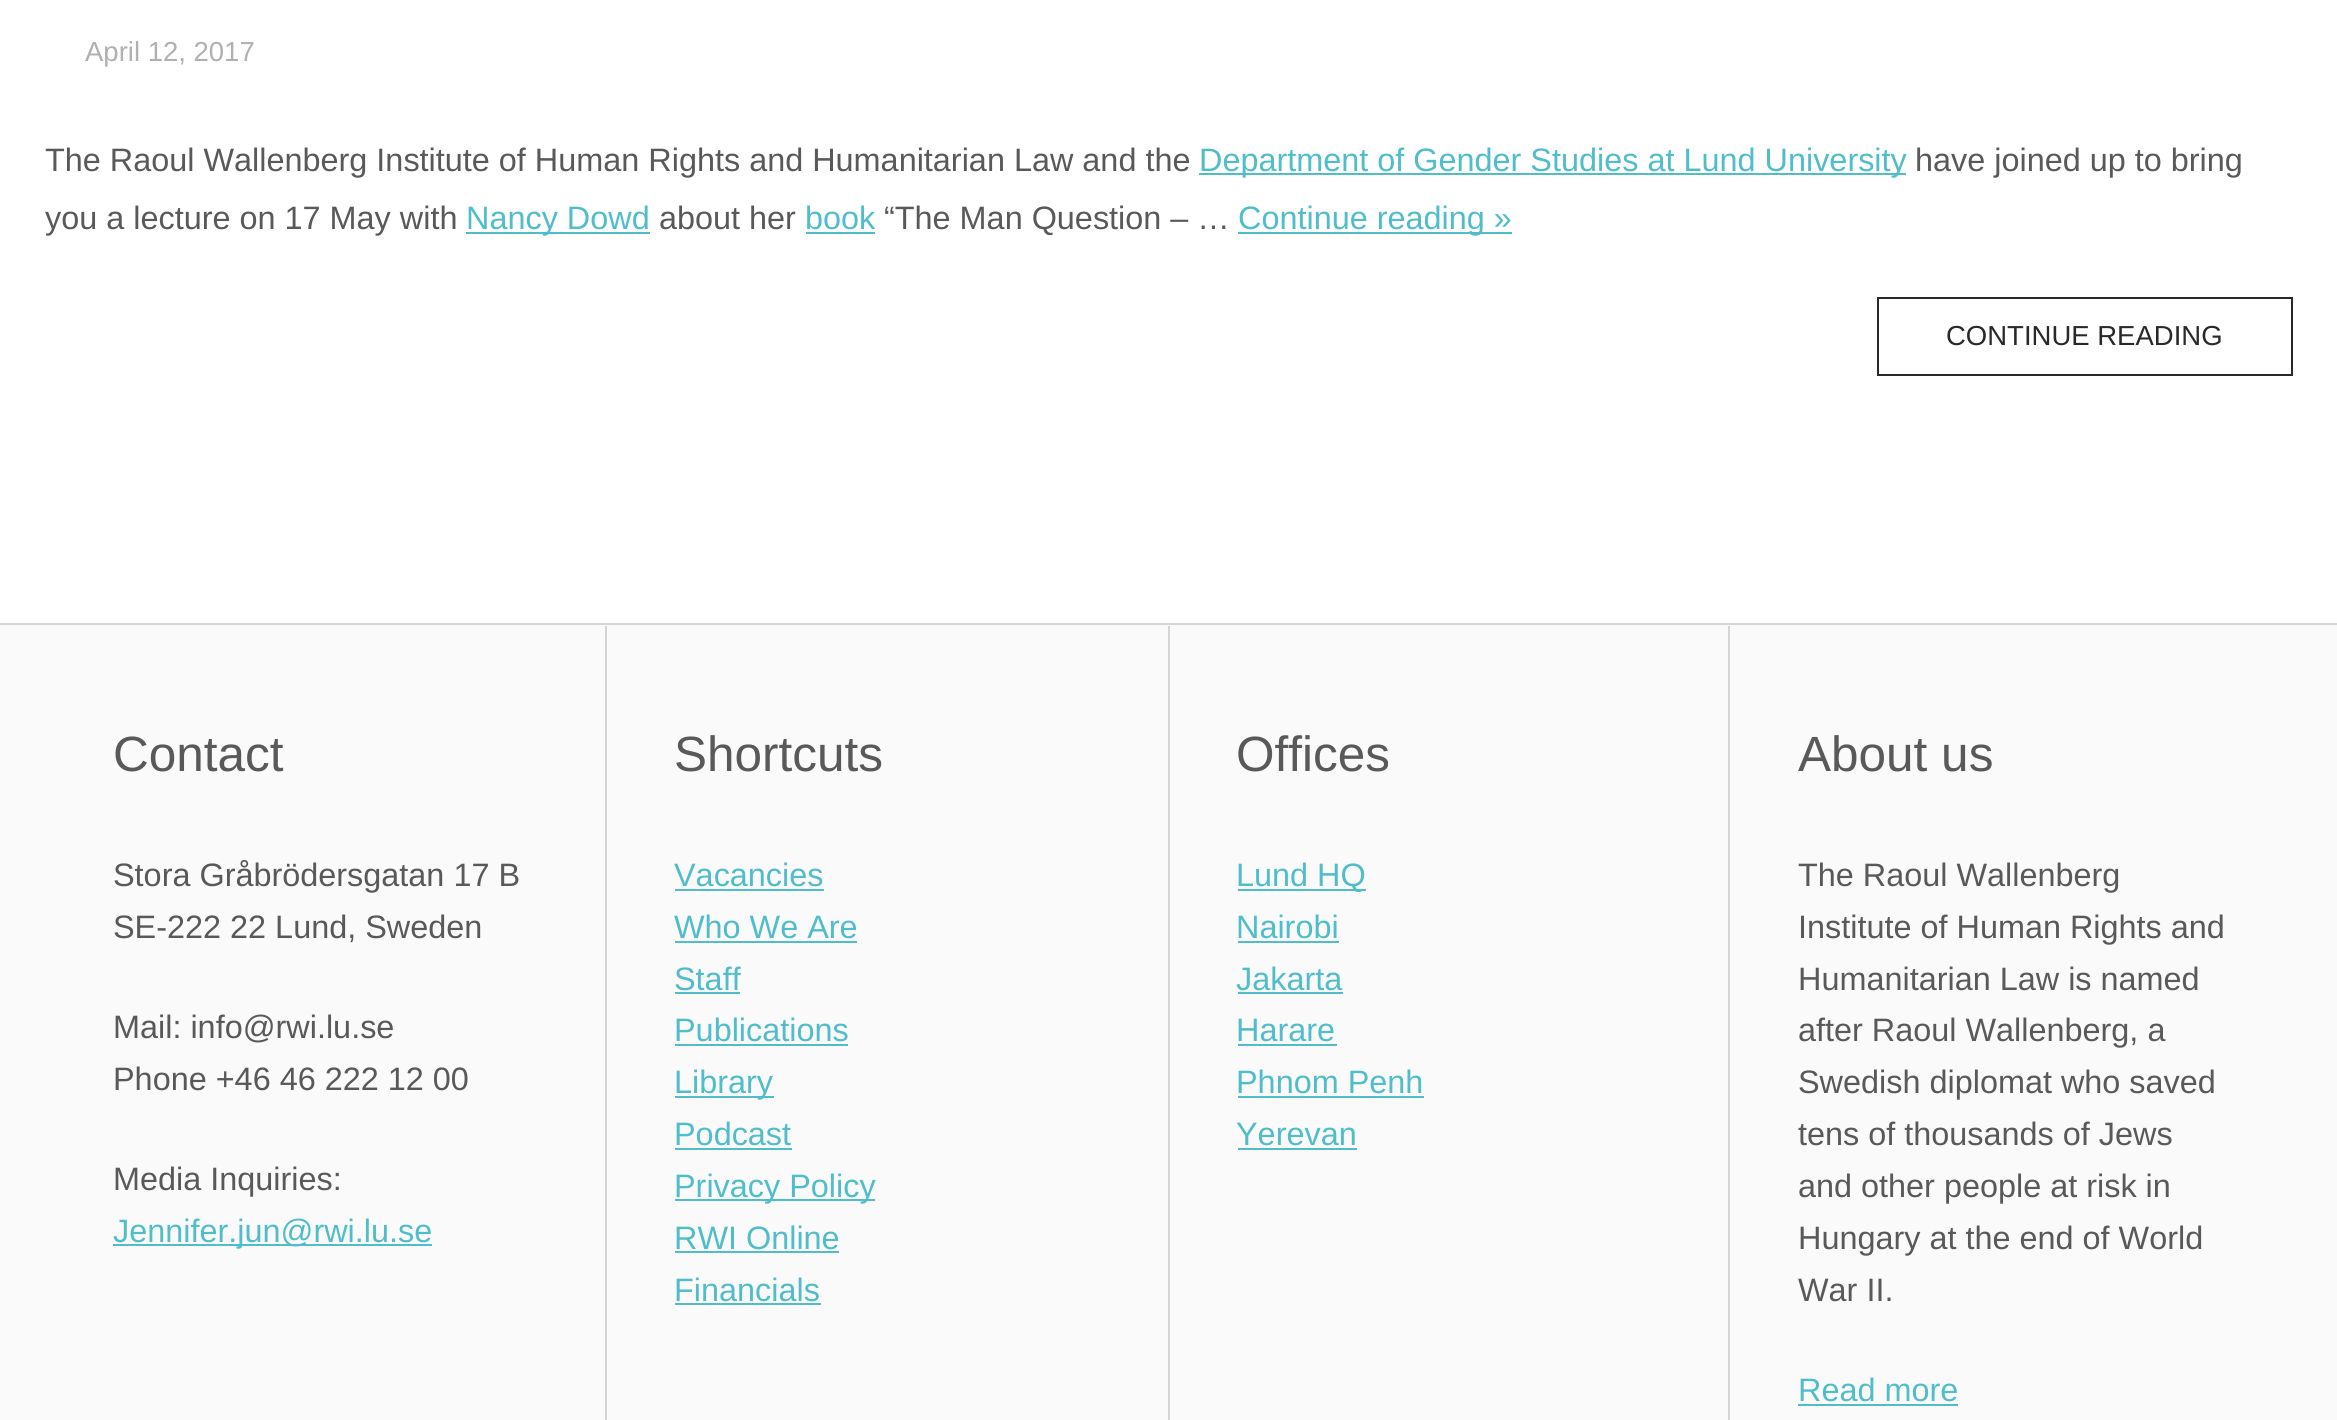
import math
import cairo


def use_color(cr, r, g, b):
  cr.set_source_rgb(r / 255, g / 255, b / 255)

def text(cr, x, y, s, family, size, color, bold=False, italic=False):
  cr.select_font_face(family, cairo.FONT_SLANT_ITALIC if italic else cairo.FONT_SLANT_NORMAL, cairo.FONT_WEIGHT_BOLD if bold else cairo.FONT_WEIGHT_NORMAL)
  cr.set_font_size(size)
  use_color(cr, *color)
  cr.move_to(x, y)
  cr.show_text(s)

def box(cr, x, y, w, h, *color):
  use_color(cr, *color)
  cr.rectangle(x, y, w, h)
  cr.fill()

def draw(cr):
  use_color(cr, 255, 255, 255)
  cr.paint()
  box(cr, 1199, 173, 707, 2, 80, 189, 203)
  box(cr, 466, 232, 184, 2, 80, 189, 203)
  box(cr, 806, 232, 69, 2, 80, 189, 203)
  box(cr, 1238, 232, 274, 2, 80, 189, 203)
  cr.rectangle(1878, 298, 414, 77)
  use_color(cr, 41, 41, 41)
  cr.stroke()
  box(cr, 0, 625, 2337, 795, 250, 250, 250)
  box(cr, 0, 623, 2337, 2, 212, 212, 212)
  box(cr, 605, 626, 2, 794, 212, 212, 212)
  box(cr, 113, 1244, 319, 2, 80, 189, 203)
  box(cr, 1168, 626, 2, 794, 212, 212, 212)
  box(cr, 675, 889, 149, 2, 80, 189, 203)
  box(cr, 675, 941, 182, 2, 80, 189, 203)
  box(cr, 675, 992, 65, 2, 80, 189, 203)
  box(cr, 675, 1044, 173, 2, 80, 189, 203)
  box(cr, 675, 1096, 99, 2, 80, 189, 203)
  box(cr, 675, 1148, 117, 2, 80, 189, 203)
  box(cr, 675, 1199, 200, 2, 80, 189, 203)
  box(cr, 675, 1251, 164, 2, 80, 189, 203)
  box(cr, 675, 1303, 146, 2, 80, 189, 203)
  box(cr, 1728, 626, 2, 794, 212, 212, 212)
  box(cr, 1238, 889, 128, 2, 80, 189, 203)
  box(cr, 1238, 941, 101, 2, 80, 189, 203)
  box(cr, 1238, 992, 105, 2, 80, 189, 203)
  box(cr, 1238, 1044, 99, 2, 80, 189, 203)
  box(cr, 1238, 1096, 186, 2, 80, 189, 203)
  box(cr, 1238, 1148, 119, 2, 80, 189, 203)
  box(cr, 1798, 1404, 160, 2, 80, 189, 203)
  text(cr, 85, 61, "April 12, 2017", "Liberation Sans", 27.5, (176, 176, 176))
  text(cr, 45, 171, "The Raoul Wallenberg Institute of Human Rights and Humanitarian Law and the", "Liberation Sans", 32.4, (89, 89, 89))
  text(cr, 1199, 171, "Department of Gender Studies at Lund University", "Liberation Sans", 32.4, (80, 189, 203))
  text(cr, 1915, 171, "have joined up to bring", "Liberation Sans", 32.4, (89, 89, 89))
  text(cr, 45, 229, "you a lecture on 17 May with", "Liberation Sans", 32.4, (89, 89, 89))
  text(cr, 466, 229, "Nancy Dowd", "Liberation Sans", 32.4, (80, 189, 203))
  text(cr, 659, 229, "about her", "Liberation Sans", 32.4, (89, 89, 89))
  text(cr, 805, 229, "book", "Liberation Sans", 32.4, (80, 189, 203))
  text(cr, 884, 229, "“The Man Question – …", "Liberation Sans", 32.4, (89, 89, 89))
  text(cr, 1238, 229, "Continue reading »", "Liberation Sans", 32.4, (80, 189, 203))
  text(cr, 1946, 345, "CONTINUE READING", "Liberation Sans", 27.5, (41, 41, 41))
  text(cr, 113, 771, "Contact", "Liberation Sans", 49.5, (89, 89, 89))
  text(cr, 113, 886, "Stora Gråbrödersgatan 17 B", "Liberation Sans", 32.4, (89, 89, 89))
  text(cr, 113, 938, "SE-222 22 Lund, Sweden", "Liberation Sans", 32.4, (89, 89, 89))
  text(cr, 113, 1038, "Mail: info@rwi.lu.se", "Liberation Sans", 32.4, (89, 89, 89))
  text(cr, 113, 1090, "Phone +46 46 222 12 00", "Liberation Sans", 32.4, (89, 89, 89))
  text(cr, 113, 1190, "Media Inquiries:", "Liberation Sans", 32.4, (89, 89, 89))
  text(cr, 113, 1242, "Jennifer.jun@rwi.lu.se", "Liberation Sans", 32.4, (80, 189, 203))
  text(cr, 674, 771, "Shortcuts", "Liberation Sans", 49.5, (89, 89, 89))
  text(cr, 674, 886, "Vacancies", "Liberation Sans", 32.4, (80, 189, 203))
  text(cr, 674, 938, "Who We Are", "Liberation Sans", 32.4, (80, 189, 203))
  text(cr, 674, 990, "Staff", "Liberation Sans", 32.4, (80, 189, 203))
  text(cr, 674, 1041, "Publications", "Liberation Sans", 32.4, (80, 189, 203))
  text(cr, 674, 1093, "Library", "Liberation Sans", 32.4, (80, 189, 203))
  text(cr, 674, 1145, "Podcast", "Liberation Sans", 32.4, (80, 189, 203))
  text(cr, 674, 1197, "Privacy Policy", "Liberation Sans", 32.4, (80, 189, 203))
  text(cr, 674, 1249, "RWI Online", "Liberation Sans", 32.4, (80, 189, 203))
  text(cr, 674, 1301, "Financials", "Liberation Sans", 32.4, (80, 189, 203))
  text(cr, 1236, 771, "Offices", "Liberation Sans", 49.5, (89, 89, 89))
  text(cr, 1236, 886, "Lund HQ", "Liberation Sans", 32.4, (80, 189, 203))
  text(cr, 1236, 938, "Nairobi", "Liberation Sans", 32.4, (80, 189, 203))
  text(cr, 1236, 990, "Jakarta", "Liberation Sans", 32.4, (80, 189, 203))
  text(cr, 1236, 1041, "Harare", "Liberation Sans", 32.4, (80, 189, 203))
  text(cr, 1236, 1093, "Phnom Penh", "Liberation Sans", 32.4, (80, 189, 203))
  text(cr, 1236, 1145, "Yerevan", "Liberation Sans", 32.4, (80, 189, 203))
  text(cr, 1798, 771, "About us", "Liberation Sans", 49.5, (89, 89, 89))
  text(cr, 1798, 886, "The Raoul Wallenberg", "Liberation Sans", 32.4, (89, 89, 89))
  text(cr, 1798, 938, "Institute of Human Rights and", "Liberation Sans", 32.4, (89, 89, 89))
  text(cr, 1798, 990, "Humanitarian Law is named", "Liberation Sans", 32.4, (89, 89, 89))
  text(cr, 1798, 1041, "after Raoul Wallenberg, a", "Liberation Sans", 32.4, (89, 89, 89))
  text(cr, 1798, 1093, "Swedish diplomat who saved", "Liberation Sans", 32.4, (89, 89, 89))
  text(cr, 1798, 1145, "tens of thousands of Jews", "Liberation Sans", 32.4, (89, 89, 89))
  text(cr, 1798, 1197, "and other people at risk in", "Liberation Sans", 32.4, (89, 89, 89))
  text(cr, 1798, 1249, "Hungary at the end of World", "Liberation Sans", 32.4, (89, 89, 89))
  text(cr, 1798, 1301, "War II.", "Liberation Sans", 32.4, (89, 89, 89))
  text(cr, 1798, 1401, "Read more", "Liberation Sans", 32.4, (80, 189, 203))


surface = cairo.ImageSurface(cairo.FORMAT_RGB24, 2337, 1420)
cr = cairo.Context(surface)
options = cairo.FontOptions()
options.set_hint_metrics(cairo.HINT_METRICS_OFF)
options.set_hint_style(cairo.HINT_STYLE_NONE)
cr.set_font_options(options)
cr.set_miter_limit(4)
draw(cr)
surface.write_to_png("out.png")
